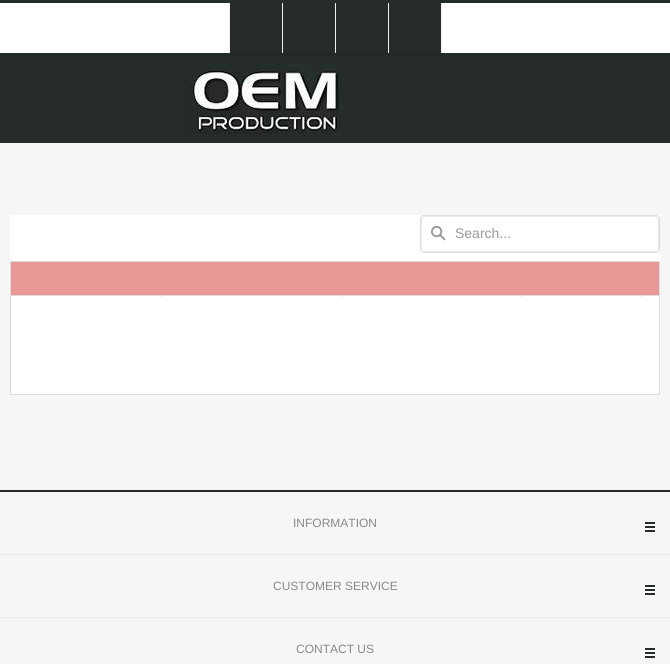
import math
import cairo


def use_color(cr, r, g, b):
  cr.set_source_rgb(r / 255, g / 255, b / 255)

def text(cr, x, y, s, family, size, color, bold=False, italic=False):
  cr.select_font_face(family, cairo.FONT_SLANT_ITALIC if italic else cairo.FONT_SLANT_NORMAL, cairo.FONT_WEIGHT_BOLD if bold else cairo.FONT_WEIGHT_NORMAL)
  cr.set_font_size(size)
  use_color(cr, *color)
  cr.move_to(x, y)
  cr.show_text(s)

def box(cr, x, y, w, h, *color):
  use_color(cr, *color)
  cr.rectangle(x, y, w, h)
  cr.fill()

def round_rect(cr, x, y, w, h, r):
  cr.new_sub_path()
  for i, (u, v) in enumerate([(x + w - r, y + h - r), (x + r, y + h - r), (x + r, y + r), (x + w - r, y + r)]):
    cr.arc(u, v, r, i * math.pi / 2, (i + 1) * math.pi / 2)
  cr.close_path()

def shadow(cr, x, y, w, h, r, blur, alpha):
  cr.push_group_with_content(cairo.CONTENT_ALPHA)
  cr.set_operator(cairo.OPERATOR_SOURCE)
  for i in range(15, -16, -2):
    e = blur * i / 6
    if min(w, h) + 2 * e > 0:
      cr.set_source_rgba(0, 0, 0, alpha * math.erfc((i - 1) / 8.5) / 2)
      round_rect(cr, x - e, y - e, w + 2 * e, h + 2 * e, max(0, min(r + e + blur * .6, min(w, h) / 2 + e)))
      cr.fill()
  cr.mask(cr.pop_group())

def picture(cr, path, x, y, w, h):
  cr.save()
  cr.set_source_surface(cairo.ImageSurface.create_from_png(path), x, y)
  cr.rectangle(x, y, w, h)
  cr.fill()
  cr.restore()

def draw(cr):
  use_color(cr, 246, 246, 246)
  cr.paint()
  box(cr, 0, 53, 670, 90, 38, 44, 44)
  picture(cr, "img_01.png", 183, 64, 160, 70)
  use_color(cr, 0, 0, 0)
  shadow(cr, 0, 3, 670, 53, 0, 2.5, 0.1)
  box(cr, 0, 3, 670, 50, 255, 255, 255)
  box(cr, 0, 0, 670, 3, 38, 44, 44)
  box(cr, 230, 3, 52, 50, 38, 44, 44)
  box(cr, 282, 3, 1, 50, 238, 238, 238)
  box(cr, 229, 3, 1, 50, 238, 238, 238)
  box(cr, 283, 3, 52, 50, 38, 44, 44)
  box(cr, 335, 3, 1, 50, 238, 238, 238)
  box(cr, 336, 3, 52, 50, 38, 44, 44)
  box(cr, 388, 3, 1, 50, 238, 238, 238)
  box(cr, 389, 3, 52, 50, 38, 44, 44)
  box(cr, 441, 3, 1, 50, 238, 238, 238)
  box(cr, 10, 215, 650, 179, 255, 255, 255)
  round_rect(cr, 420.5, 215.5, 239, 37, 3.5)
  use_color(cr, 221, 221, 221)
  cr.set_line_width(1)
  cr.stroke()
  cr.rectangle(421.5, 216.5, 237, 35)
  use_color(cr, 233, 233, 233)
  cr.stroke()
  picture(cr, "img_02.png", 431, 225, 15, 16)
  cr.rectangle(10.5, 261.5, 649, 33)
  use_color(cr, 221, 221, 221)
  cr.stroke()
  box(cr, 11, 262, 648, 33, 232, 152, 149)
  cr.rectangle(10.5, 295.5, 649, 99)
  use_color(cr, 221, 221, 221)
  cr.stroke()
  box(cr, 161, 296, 1, 1, 221, 221, 221)
  box(cr, 341, 296, 1, 1, 221, 221, 221)
  box(cr, 521, 296, 1, 1, 221, 221, 221)
  box(cr, 641, 296, 1, 1, 221, 221, 221)
  box(cr, 0, 490, 670, 2, 38, 44, 44)
  box(cr, 0, 554, 670, 1, 233, 233, 233)
  box(cr, 645, 522, 10, 10, 38, 44, 44)
  picture(cr, "img_03.png", 645, 524, 10, 6)
  box(cr, 0, 617, 670, 1, 233, 233, 233)
  box(cr, 645, 585, 10, 10, 38, 44, 44)
  picture(cr, "img_03.png", 645, 587, 10, 6)
  box(cr, 645, 648, 10, 10, 38, 44, 44)
  picture(cr, "img_03.png", 645, 650, 10, 6)
  text(cr, 455, 238, "Search...", "Liberation Sans", 14, (153, 153, 153))
  text(cr, 293, 527, "INFORMATION", "Liberation Sans", 12, (137, 137, 137))
  text(cr, 273, 590, "CUSTOMER SERVICE", "Liberation Sans", 12, (137, 137, 137))
  text(cr, 296, 653, "CONTACT US", "Liberation Sans", 12, (137, 137, 137))


surface = cairo.ImageSurface(cairo.FORMAT_RGB24, 670, 664)
cr = cairo.Context(surface)
options = cairo.FontOptions()
options.set_hint_metrics(cairo.HINT_METRICS_OFF)
options.set_hint_style(cairo.HINT_STYLE_NONE)
cr.set_font_options(options)
cr.set_miter_limit(4)
draw(cr)
surface.write_to_png("out.png")
